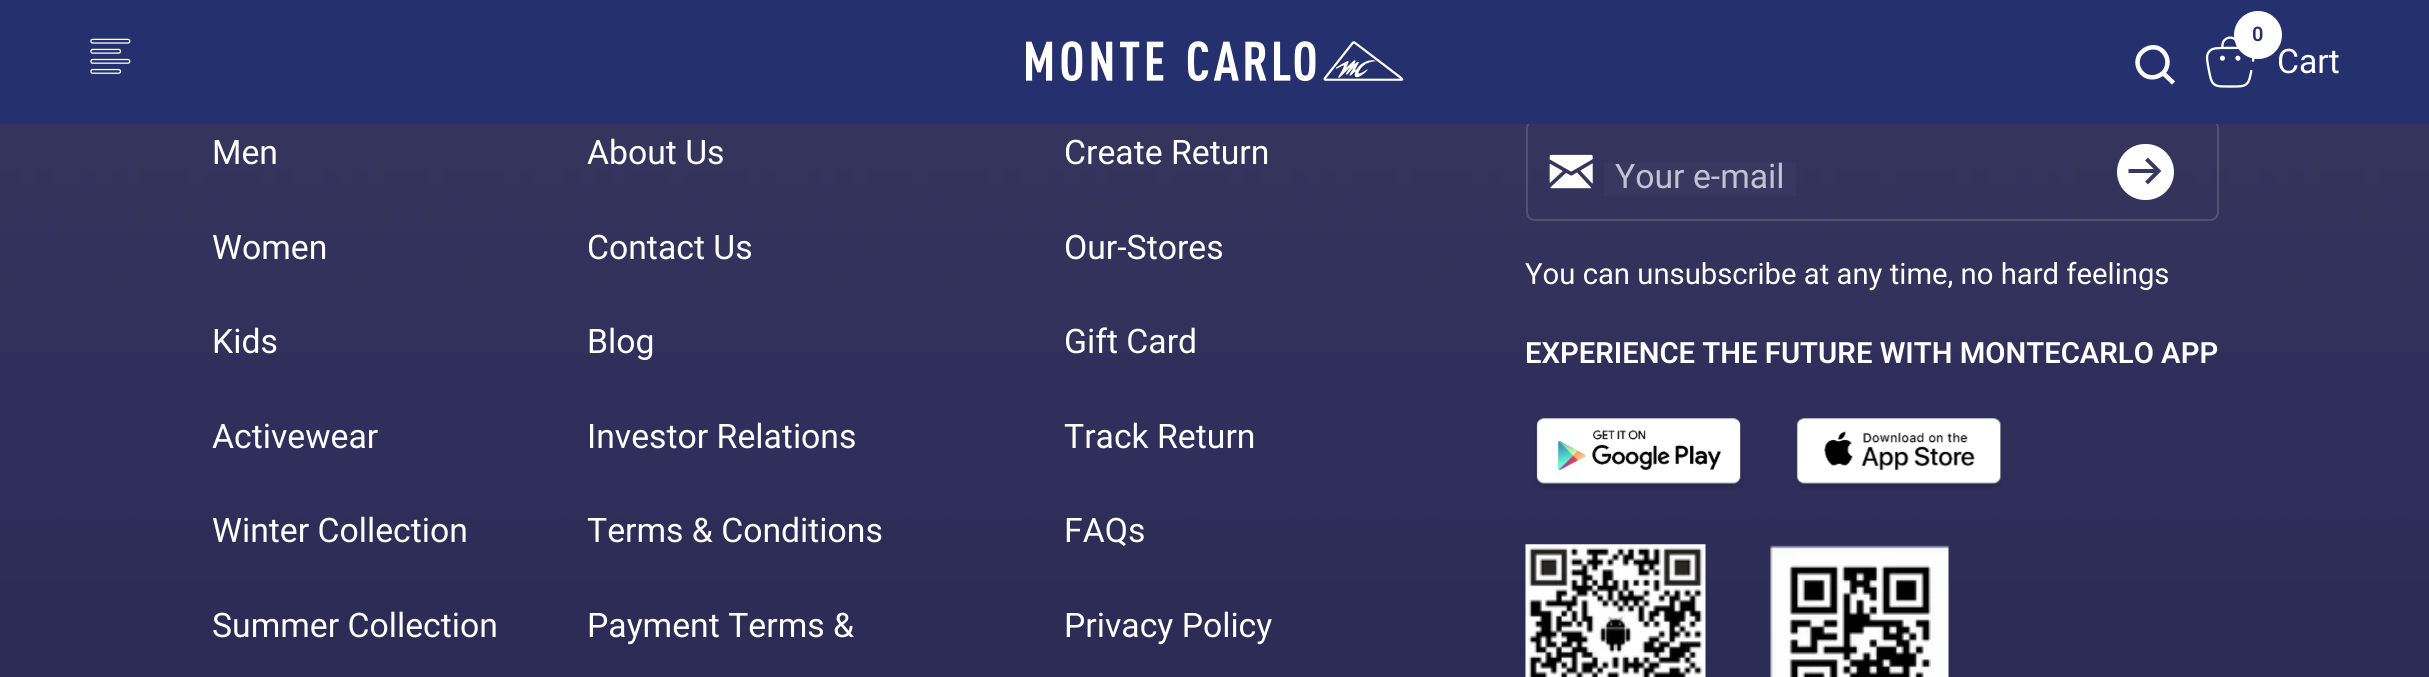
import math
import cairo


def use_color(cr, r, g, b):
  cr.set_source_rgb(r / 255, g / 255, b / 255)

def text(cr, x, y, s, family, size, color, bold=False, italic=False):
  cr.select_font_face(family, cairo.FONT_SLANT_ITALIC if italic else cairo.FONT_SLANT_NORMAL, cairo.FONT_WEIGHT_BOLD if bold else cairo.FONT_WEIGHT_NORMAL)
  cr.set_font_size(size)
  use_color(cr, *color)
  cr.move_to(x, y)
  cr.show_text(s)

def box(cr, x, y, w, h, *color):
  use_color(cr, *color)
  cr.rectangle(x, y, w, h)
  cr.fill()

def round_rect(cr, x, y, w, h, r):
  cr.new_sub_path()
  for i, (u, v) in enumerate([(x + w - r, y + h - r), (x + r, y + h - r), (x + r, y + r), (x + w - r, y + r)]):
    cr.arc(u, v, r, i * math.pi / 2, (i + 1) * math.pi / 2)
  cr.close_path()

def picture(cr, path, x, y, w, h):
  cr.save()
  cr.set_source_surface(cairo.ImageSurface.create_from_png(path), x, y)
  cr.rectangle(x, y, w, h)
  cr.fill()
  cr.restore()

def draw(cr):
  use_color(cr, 255, 255, 255)
  cr.paint()
  picture(cr, "img_04.png", 0, 124, 2429, 553)
  round_rect(cr, 1527, 120, 691, 100, 8)
  cr.set_source_rgba(1, 1, 1, 0.15)
  cr.stroke()
  box(cr, 0, 0, 2429, 124, 37, 48, 110)
  picture(cr, "img_01.png", 90, 38, 41, 36)
  picture(cr, "img_02.png", 1026, 41, 378, 41)
  picture(cr, "img_03.png", 2205, 36, 50, 52)
  use_color(cr, 255, 255, 255)
  cr.arc(2258, 35, 24, 0, 2 * math.pi)
  cr.fill()
  cr.new_path()
  cr.move_to(2163, 73)
  cr.curve_to(2169, 67, 2169, 57.5, 2163, 51.5)
  cr.curve_to(2157.5, 45.5, 2148, 46, 2142, 52)
  cr.curve_to(2136, 57.5, 2136, 67, 2142, 73)
  cr.curve_to(2147.5, 79, 2157, 78.5, 2163, 73)
  cr.close_path()
  cr.move_to(2163, 73)
  cr.line_to(2173.5, 83)
  cr.set_line_width(4.5)
  cr.stroke()
  picture(cr, "img_05.png", 1549, 154, 44, 35)
  box(cr, 1604, 162, 192, 34, 56, 56, 97)
  use_color(cr, 255, 255, 255)
  round_rect(cr, 2117, 144, 57, 56, 28)
  cr.fill()
  cr.new_path()
  cr.move_to(2128.5, 171)
  cr.line_to(2158.5, 171)
  cr.move_to(2146.5, 159)
  cr.line_to(2158.5, 171)
  cr.line_to(2146.5, 183)
  use_color(cr, 56, 56, 97)
  cr.set_line_width(4)
  cr.stroke()
  picture(cr, "img_06.png", 1535, 418, 207, 71)
  picture(cr, "img_07.png", 1795, 418, 208, 71)
  picture(cr, "img_08.png", 1525, 544, 181, 133)
  picture(cr, "img_09.png", 1770, 545, 179, 132)
  text(cr, 2252, 41, "0", "Roboto SemiBold", 20, (37, 48, 110))
  text(cr, 2277, 73, "Cart", "Roboto", 33.75, (255, 255, 255))
  text(cr, 212, 164, "Men", "Roboto", 33.75, (255, 255, 255))
  text(cr, 212, 259, "Women", "Roboto", 33.75, (255, 255, 255))
  text(cr, 212, 353, "Kids", "Roboto", 33.75, (255, 255, 255))
  text(cr, 212, 448, "Activewear", "Roboto", 33.75, (255, 255, 255))
  text(cr, 212, 542, "Winter Collection", "Roboto", 33.75, (255, 255, 255))
  text(cr, 212, 637, "Summer Collection", "Roboto", 33.75, (255, 255, 255))
  text(cr, 587, 164, "About Us", "Roboto", 33.75, (255, 255, 255))
  text(cr, 587, 259, "Contact Us", "Roboto", 33.75, (255, 255, 255))
  text(cr, 587, 353, "Blog", "Roboto", 33.75, (255, 255, 255))
  text(cr, 587, 448, "Investor Relations", "Roboto", 33.75, (255, 255, 255))
  text(cr, 587, 542, "Terms & Conditions", "Roboto", 33.75, (255, 255, 255))
  text(cr, 587, 637, "Payment Terms &", "Roboto", 33.75, (255, 255, 255))
  text(cr, 1064, 164, "Create Return", "Roboto", 33.75, (255, 255, 255))
  text(cr, 1064, 259, "Our-Stores", "Roboto", 33.75, (255, 255, 255))
  text(cr, 1064, 353, "Gift Card", "Roboto", 33.75, (255, 255, 255))
  text(cr, 1064, 448, "Track Return", "Roboto", 33.75, (255, 255, 255))
  text(cr, 1064, 542, "FAQs", "Roboto", 33.75, (255, 255, 255))
  text(cr, 1064, 637, "Privacy Policy", "Roboto", 33.75, (255, 255, 255))
  text(cr, 1615, 188, "Your e-mail", "Roboto", 33.75, (195, 195, 208))
  text(cr, 1525, 284, "You can unsubscribe at any time, no hard feelings", "Roboto", 29.25, (255, 255, 255))
  text(cr, 1525, 363, "EXPERIENCE THE FUTURE WITH MONTECARLO APP", "Roboto SemiBold", 29.25, (255, 255, 255))


surface = cairo.ImageSurface(cairo.FORMAT_RGB24, 2429, 677)
cr = cairo.Context(surface)
options = cairo.FontOptions()
options.set_hint_metrics(cairo.HINT_METRICS_OFF)
options.set_hint_style(cairo.HINT_STYLE_NONE)
cr.set_font_options(options)
cr.set_miter_limit(4)
draw(cr)
surface.write_to_png("out.png")
